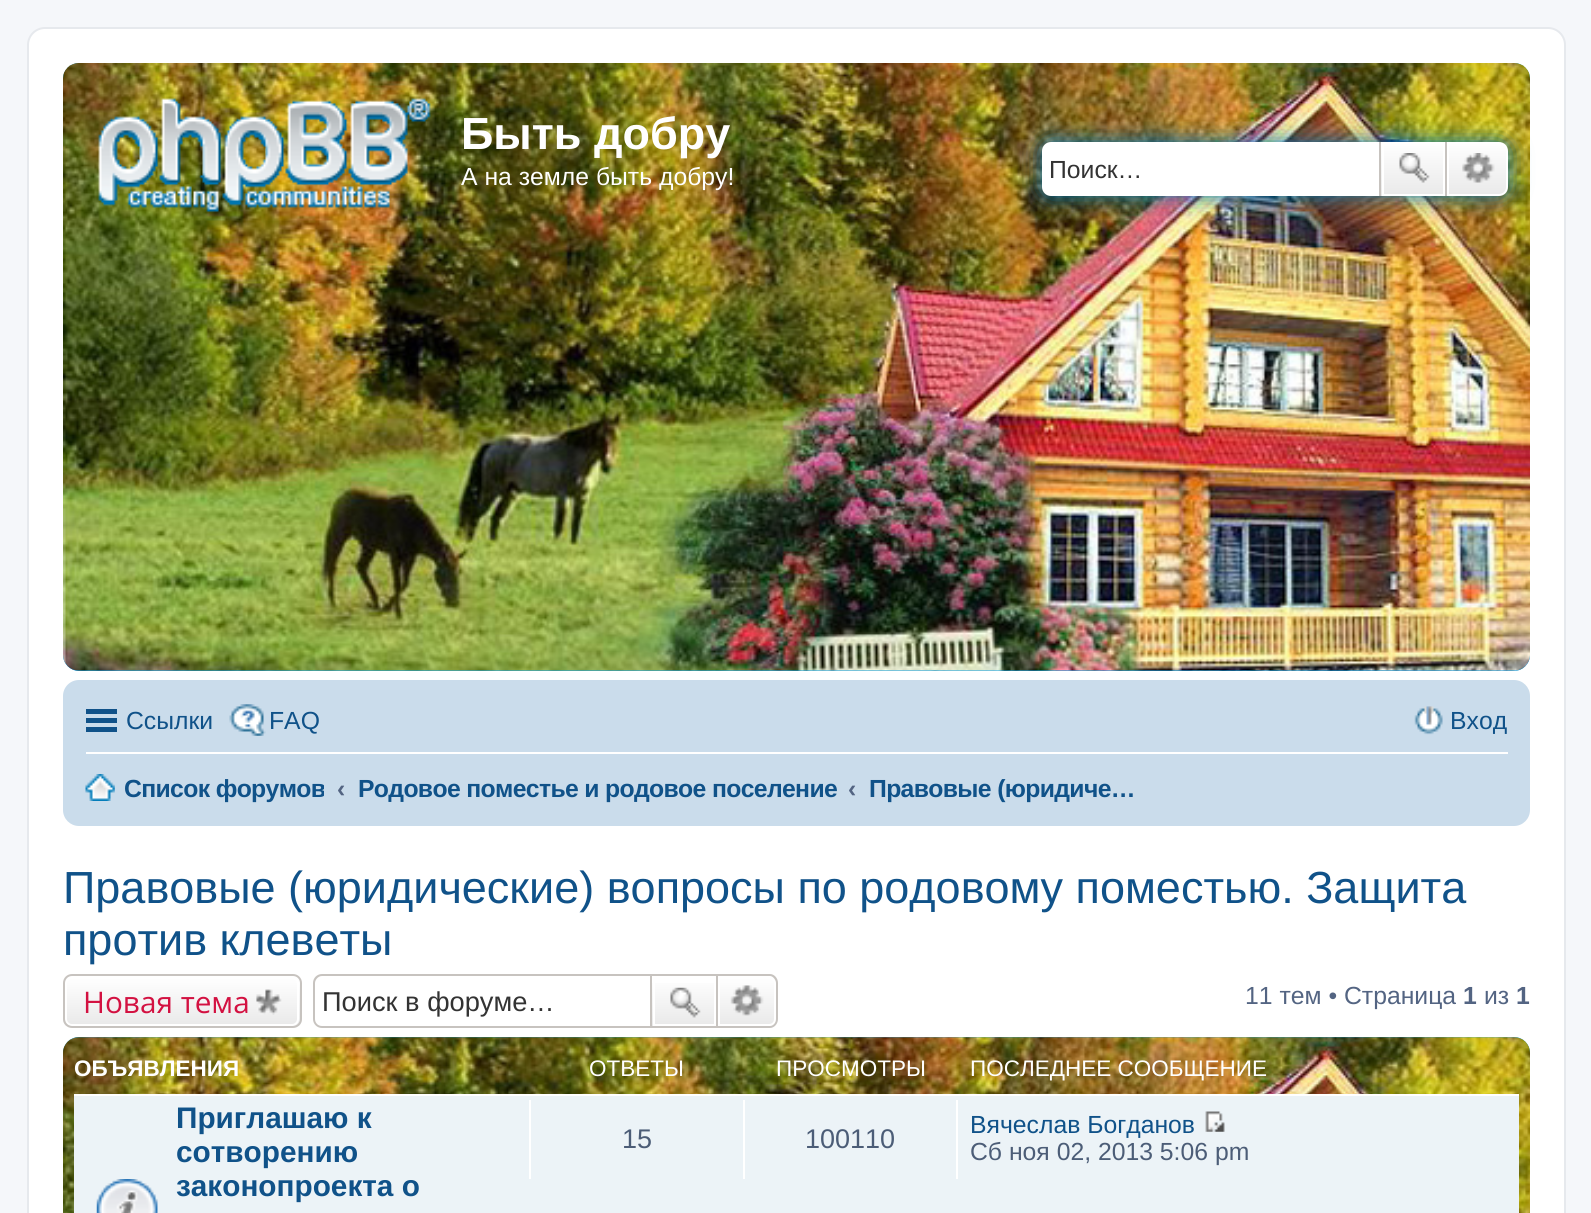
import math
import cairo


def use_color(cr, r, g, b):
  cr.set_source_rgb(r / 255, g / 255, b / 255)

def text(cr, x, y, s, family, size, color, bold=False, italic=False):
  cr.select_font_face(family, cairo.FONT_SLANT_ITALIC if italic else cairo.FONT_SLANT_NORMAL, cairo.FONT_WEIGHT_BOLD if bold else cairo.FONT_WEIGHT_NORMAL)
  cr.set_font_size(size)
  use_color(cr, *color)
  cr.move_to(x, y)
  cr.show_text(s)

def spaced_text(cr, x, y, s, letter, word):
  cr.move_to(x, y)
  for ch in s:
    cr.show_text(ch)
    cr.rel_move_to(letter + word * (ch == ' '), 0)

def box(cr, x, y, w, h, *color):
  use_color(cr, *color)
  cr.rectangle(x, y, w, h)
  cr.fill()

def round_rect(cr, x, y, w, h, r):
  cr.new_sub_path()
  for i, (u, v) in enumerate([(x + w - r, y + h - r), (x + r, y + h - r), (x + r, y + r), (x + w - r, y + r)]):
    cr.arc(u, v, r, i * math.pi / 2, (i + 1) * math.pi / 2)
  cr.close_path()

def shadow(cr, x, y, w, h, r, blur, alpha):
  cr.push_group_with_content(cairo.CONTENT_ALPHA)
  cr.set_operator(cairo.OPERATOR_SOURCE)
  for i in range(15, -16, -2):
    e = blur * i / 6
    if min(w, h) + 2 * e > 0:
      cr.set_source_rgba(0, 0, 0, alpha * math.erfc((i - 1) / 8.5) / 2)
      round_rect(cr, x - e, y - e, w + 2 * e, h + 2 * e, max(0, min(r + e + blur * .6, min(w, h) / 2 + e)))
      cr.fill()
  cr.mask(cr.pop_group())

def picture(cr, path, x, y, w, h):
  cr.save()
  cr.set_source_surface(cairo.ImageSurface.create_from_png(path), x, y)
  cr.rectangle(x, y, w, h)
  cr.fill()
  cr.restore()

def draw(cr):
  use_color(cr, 245, 247, 250)
  cr.paint()
  use_color(cr, 255, 255, 255)
  round_rect(cr, 28, 28, 1537, 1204, 17)
  cr.fill_preserve()
  use_color(cr, 230, 233, 237)
  cr.stroke()
  use_color(cr, 18, 163, 235)
  round_rect(cr, 63, 63, 1467, 608, 16)
  cr.fill()
  picture(cr, "img_01.png", 63, 63, 1467, 608)
  picture(cr, "img_02.png", 98, 98, 333, 115)
  use_color(cr, 0, 117, 176)
  shadow(cr, 1042, 142, 466, 54, 9, 11, 1)
  use_color(cr, 255, 255, 255)
  cr.new_path()
  cr.move_to(1051, 142)
  cr.line_to(1379, 142)
  cr.line_to(1379, 196)
  cr.line_to(1051, 196)
  cr.curve_to(1046, 196, 1042, 192, 1042, 187)
  cr.line_to(1042, 151)
  cr.curve_to(1042, 146, 1046, 142, 1051, 142)
  cr.close_path()
  cr.fill()
  gradient = cairo.LinearGradient(1413, 142, 1413, 196)
  gradient.add_color_stop_rgba(0, 1, 1, 1, 1)
  gradient.add_color_stop_rgba(1, 0.914, 0.914, 0.914, 1)
  cr.set_source(gradient)
  cr.rectangle(1381, 142, 62, 54)
  cr.fill()
  cr.rectangle(1383, 143, 61, 52)
  use_color(cr, 255, 255, 255)
  cr.stroke()
  box(cr, 1445, 142, 2, 54, 199, 195, 191)
  box(cr, 1379, 142, 2, 54, 199, 195, 191)
  picture(cr, "img_03.png", 1399, 153, 31, 30)
  gradient = cairo.LinearGradient(1477, 142, 1477, 196)
  gradient.add_color_stop_rgba(0, 1, 1, 1, 1)
  gradient.add_color_stop_rgba(1, 0.914, 0.914, 0.914, 1)
  cr.set_source(gradient)
  cr.new_path()
  cr.move_to(1448, 143)
  cr.line_to(1499, 143)
  cr.curve_to(1503.5, 143, 1507, 146.5, 1507, 151)
  cr.line_to(1507, 187)
  cr.curve_to(1507, 191.5, 1503.5, 195, 1499, 195)
  cr.line_to(1448, 195)
  cr.close_path()
  cr.fill_preserve()
  use_color(cr, 255, 255, 255)
  cr.stroke()
  picture(cr, "img_04.png", 1462, 153, 33, 30)
  use_color(cr, 202, 220, 235)
  round_rect(cr, 63, 680, 1467, 146, 16)
  cr.fill()
  box(cr, 86, 709, 31, 5, 16, 82, 137)
  box(cr, 86, 718, 31, 5, 16, 82, 137)
  box(cr, 86, 727, 31, 5, 16, 82, 137)
  picture(cr, "img_05.png", 229, 704, 37, 32)
  picture(cr, "img_06.png", 1414, 706, 29, 29)
  box(cr, 86, 752, 1422, 2, 255, 255, 255)
  picture(cr, "img_07.png", 85, 774, 30, 27)
  cr.save()
  round_rect(cr, 63, 974, 239, 54, 9)
  cr.clip()
  gradient = cairo.LinearGradient(182, 977, 182, 1026)
  gradient.add_color_stop_rgba(0, 1, 1, 1, 1)
  gradient.add_color_stop_rgba(1, 0.914, 0.914, 0.914, 1)
  cr.set_source(gradient)
  cr.rectangle(63, 977, 239, 49)
  cr.fill()
  cr.restore()
  round_rect(cr, 66, 978, 232, 47, 6)
  cr.stroke()
  round_rect(cr, 64, 975, 237, 52, 8)
  use_color(cr, 199, 195, 191)
  cr.stroke()
  picture(cr, "img_08.png", 256, 989, 26, 26)
  cr.set_fill_rule(cairo.FILL_RULE_EVEN_ODD)
  cr.new_path()
  cr.move_to(322, 974)
  cr.line_to(650, 974)
  cr.line_to(650, 1028)
  cr.line_to(322, 1028)
  cr.curve_to(317, 1028, 313, 1024, 313, 1019)
  cr.line_to(313, 983)
  cr.curve_to(313, 978, 317, 974, 322, 974)
  cr.close_path()
  cr.move_to(322, 976)
  cr.line_to(650, 976)
  cr.line_to(650, 1026)
  cr.line_to(322, 1026)
  cr.curve_to(318, 1026, 315, 1023, 315, 1019)
  cr.line_to(315, 983)
  cr.curve_to(315, 980, 318, 976, 322, 976)
  cr.close_path()
  cr.fill()
  gradient = cairo.LinearGradient(684, 977, 684, 1026)
  gradient.add_color_stop_rgba(0, 1, 1, 1, 1)
  gradient.add_color_stop_rgba(1, 0.914, 0.914, 0.914, 1)
  cr.set_source(gradient)
  cr.rectangle(652, 983, 62, 43)
  cr.fill()
  cr.rectangle(654, 978, 61, 47)
  use_color(cr, 255, 255, 255)
  cr.stroke()
  cr.rectangle(651, 975, 66, 52)
  use_color(cr, 199, 195, 191)
  cr.stroke()
  picture(cr, "img_09.png", 670, 987, 31, 31)
  gradient = cairo.LinearGradient(747, 977, 747, 1026)
  gradient.add_color_stop_rgba(0, 1, 1, 1, 1)
  gradient.add_color_stop_rgba(1, 0.914, 0.914, 0.914, 1)
  cr.set_source(gradient)
  cr.new_path()
  cr.move_to(719, 978)
  cr.line_to(769, 978)
  cr.curve_to(772.5, 978, 775, 980.5, 775, 984)
  cr.line_to(775, 1019)
  cr.curve_to(775, 1022.5, 772.5, 1025, 769, 1025)
  cr.line_to(719, 1025)
  cr.close_path()
  cr.fill_preserve()
  use_color(cr, 255, 255, 255)
  cr.stroke()
  use_color(cr, 199, 195, 191)
  cr.new_path()
  cr.move_to(718, 974)
  cr.line_to(770, 974)
  cr.curve_to(774, 974, 778, 978, 778, 983)
  cr.line_to(778, 1019)
  cr.curve_to(778, 1024, 774, 1028, 770, 1028)
  cr.line_to(718, 1028)
  cr.close_path()
  cr.move_to(718, 976)
  cr.line_to(770, 976)
  cr.curve_to(773, 976, 776, 980, 776, 983)
  cr.line_to(776, 1019)
  cr.curve_to(776, 1023, 773, 1026, 770, 1026)
  cr.line_to(718, 1026)
  cr.close_path()
  cr.fill()
  picture(cr, "img_10.png", 730, 985, 34, 31)
  use_color(cr, 18, 163, 235)
  round_rect(cr, 63, 1037, 1467, 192, 16)
  cr.fill()
  picture(cr, "img_11.png", 63, 1037, 1467, 176)
  box(cr, 74, 1096, 1445, 117, 236, 243, 247)
  box(cr, 74, 1094, 1445, 2, 255, 255, 255)
  picture(cr, "img_12.png", 96, 1179, 62, 34)
  box(cr, 529, 1100, 2, 79, 255, 255, 255)
  box(cr, 743, 1100, 2, 79, 255, 255, 255)
  box(cr, 956, 1100, 2, 79, 255, 255, 255)
  picture(cr, "img_13.png", 1205, 1111, 20, 21)
  text(cr, 461, 149, "Быть добру", "Liberation Sans", 45, (255, 255, 255), bold=True)
  text(cr, 461, 185, "А на земле быть добру!", "Liberation Sans", 24.75, (255, 255, 255))
  text(cr, 1049, 178, "Поиск…", "Liberation Sans", 24.75, (51, 51, 51))
  text(cr, 126, 729, "Ссылки", "Liberation Sans", 24.75, (16, 82, 137))
  text(cr, 269, 729, "FAQ", "Liberation Sans", 24.75, (16, 82, 137))
  text(cr, 1450, 729, "Вход", "Liberation Sans", 24.75, (16, 82, 137))
  cr.save()
  cr.set_fill_rule(cairo.FILL_RULE_WINDING)
  cr.rectangle(86, 761, 238, 54)
  cr.clip()
  cr.select_font_face("Liberation Sans", cairo.FONT_SLANT_NORMAL, cairo.FONT_WEIGHT_BOLD)
  spaced_text(cr, 124, 797, "Список форумов", -0.65, 0)
  cr.restore()
  text(cr, 337, 797, "‹", "Liberation Sans", 24.75, (83, 100, 130), bold=True)
  use_color(cr, 16, 82, 137)
  spaced_text(cr, 358, 797, "Родовое поместье и родовое поселение", -0.65, 0)
  text(cr, 848, 797, "‹", "Liberation Sans", 24.75, (83, 100, 130), bold=True)
  use_color(cr, 16, 82, 137)
  spaced_text(cr, 869, 797, "Правовые (юридиче…", -0.65, 0)
  text(cr, 63, 903, "Правовые (юридические) вопросы по родовому поместью. Защита", "Liberation Sans", 45, (16, 82, 137))
  text(cr, 63, 955, "против клеветы", "Liberation Sans", 45, (16, 82, 137))
  text(cr, 83, 1013, "Новая тема", "Open Sans", 29.75, (211, 17, 65))
  text(cr, 322, 1011, "Поиск в форуме…", "Liberation Sans", 27.25, (51, 51, 51))
  text(cr, 1245, 1004, "11 тем • Страница", "Liberation Sans", 24.75, (83, 100, 130))
  text(cr, 1463, 1004, "1", "Liberation Sans", 24.75, (83, 100, 130), bold=True)
  text(cr, 1484, 1004, "из", "Liberation Sans", 24.75, (83, 100, 130))
  text(cr, 1516, 1004, "1", "Liberation Sans", 24.75, (83, 100, 130), bold=True)
  text(cr, 74, 1076, "ОБЪЯВЛЕНИЯ", "Liberation Sans", 22.5, (255, 255, 255), bold=True)
  text(cr, 589, 1076, "ОТВЕТЫ", "Liberation Sans", 22.5, (255, 255, 255))
  text(cr, 776, 1076, "ПРОСМОТРЫ", "Liberation Sans", 22.5, (255, 255, 255))
  text(cr, 970, 1076, "ПОСЛЕДНЕЕ СООБЩЕНИЕ", "Liberation Sans", 22.5, (255, 255, 255))
  text(cr, 176, 1128, "Приглашаю к", "Liberation Sans", 29.75, (16, 82, 137), bold=True)
  text(cr, 176, 1162, "сотворению", "Liberation Sans", 29.75, (16, 82, 137), bold=True)
  text(cr, 176, 1196, "законопроекта о", "Liberation Sans", 29.75, (16, 82, 137), bold=True)
  text(cr, 622, 1148, "15", "Liberation Sans", 27, (76, 93, 119))
  text(cr, 805, 1148, "100110", "Liberation Sans", 27, (76, 93, 119))
  text(cr, 970, 1133, "Вячеслав Богданов", "Liberation Sans", 24.75, (16, 82, 137))
  text(cr, 970, 1160, "Сб ноя 02, 2013 5:06 pm", "Liberation Sans", 24.75, (76, 93, 119))


surface = cairo.ImageSurface(cairo.FORMAT_RGB24, 1591, 1213)
cr = cairo.Context(surface)
options = cairo.FontOptions()
options.set_hint_metrics(cairo.HINT_METRICS_OFF)
options.set_hint_style(cairo.HINT_STYLE_NONE)
cr.set_font_options(options)
cr.set_miter_limit(4)
draw(cr)
surface.write_to_png("out.png")
